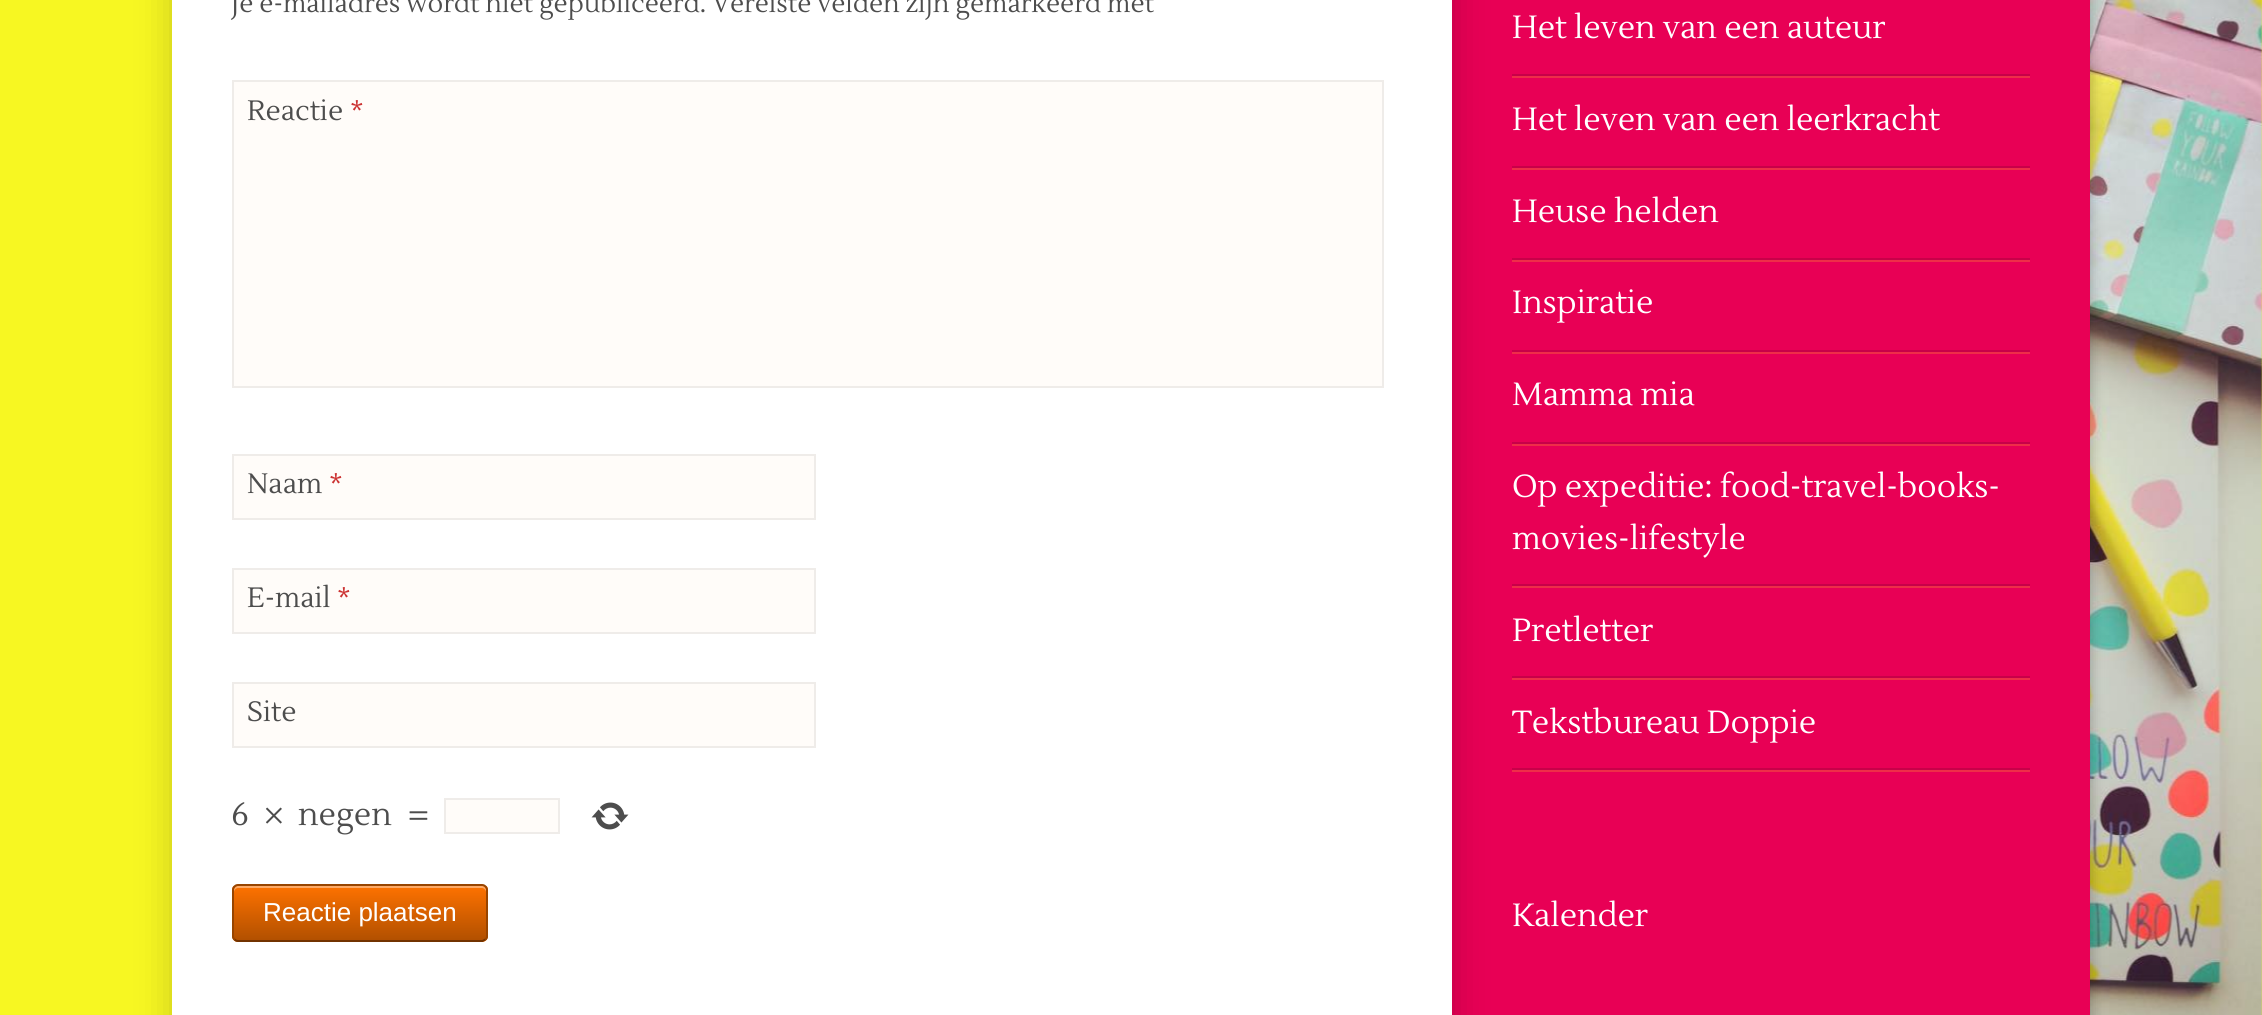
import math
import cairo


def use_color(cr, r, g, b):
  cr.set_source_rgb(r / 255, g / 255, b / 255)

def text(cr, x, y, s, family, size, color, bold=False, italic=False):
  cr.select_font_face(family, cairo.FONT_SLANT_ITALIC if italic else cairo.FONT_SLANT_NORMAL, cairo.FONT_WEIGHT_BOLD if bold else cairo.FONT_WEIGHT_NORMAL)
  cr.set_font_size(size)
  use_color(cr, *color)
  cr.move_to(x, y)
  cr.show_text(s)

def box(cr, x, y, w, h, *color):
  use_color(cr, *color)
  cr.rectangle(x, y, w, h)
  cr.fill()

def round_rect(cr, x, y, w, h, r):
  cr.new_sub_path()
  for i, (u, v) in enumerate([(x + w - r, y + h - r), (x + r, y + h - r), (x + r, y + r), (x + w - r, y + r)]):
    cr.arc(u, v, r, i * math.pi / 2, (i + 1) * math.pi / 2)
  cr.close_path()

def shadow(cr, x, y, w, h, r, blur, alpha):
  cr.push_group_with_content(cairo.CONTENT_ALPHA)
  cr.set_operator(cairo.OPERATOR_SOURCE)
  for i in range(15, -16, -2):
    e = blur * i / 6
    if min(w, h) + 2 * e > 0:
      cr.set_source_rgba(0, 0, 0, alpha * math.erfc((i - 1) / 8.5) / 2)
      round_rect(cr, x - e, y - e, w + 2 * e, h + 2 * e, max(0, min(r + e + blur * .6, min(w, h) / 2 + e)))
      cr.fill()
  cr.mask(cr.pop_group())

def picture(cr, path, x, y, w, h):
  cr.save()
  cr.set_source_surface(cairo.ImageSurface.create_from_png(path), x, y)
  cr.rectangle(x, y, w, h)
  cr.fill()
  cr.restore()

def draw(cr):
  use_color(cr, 247, 247, 34)
  cr.paint()
  picture(cr, "img_01.png", 2090, 0, 172, 1015)
  use_color(cr, 0, 0, 0)
  shadow(cr, 1452, -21, 638, 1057, 0, 7, 0.3)
  box(cr, 1452, 0, 638, 1015, 232, 0, 85)
  use_color(cr, 0, 0, 0)
  shadow(cr, 172, -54, 1280, 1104, 0, 18, 0.2)
  box(cr, 172, 0, 1280, 1015, 255, 255, 255)
  use_color(cr, 255, 252, 249)
  cr.rectangle(233, 81, 1150, 306)
  cr.fill_preserve()
  use_color(cr, 239, 236, 233)
  cr.stroke()
  use_color(cr, 255, 252, 249)
  cr.rectangle(233, 455, 582, 64)
  cr.fill_preserve()
  use_color(cr, 239, 236, 233)
  cr.stroke()
  use_color(cr, 255, 252, 249)
  cr.rectangle(233, 569, 582, 64)
  cr.fill_preserve()
  use_color(cr, 239, 236, 233)
  cr.stroke()
  use_color(cr, 255, 252, 249)
  cr.rectangle(233, 683, 582, 64)
  cr.fill_preserve()
  use_color(cr, 239, 236, 233)
  cr.stroke()
  use_color(cr, 255, 252, 249)
  cr.rectangle(445, 799, 114, 34)
  cr.fill_preserve()
  use_color(cr, 239, 236, 233)
  cr.stroke()
  picture(cr, "img_02.png", 591, 802, 38, 28)
  cr.save()
  round_rect(cr, 232, 884, 256, 58, 6)
  cr.clip()
  gradient = cairo.LinearGradient(360, 886, 360, 940)
  gradient.add_color_stop_rgba(0, 0.996, 0.447, 0, 1)
  gradient.add_color_stop_rgba(1, 0.698, 0.314, 0, 1)
  cr.set_source(gradient)
  cr.rectangle(232, 886, 256, 54)
  cr.fill()
  gradient = cairo.LinearGradient(360, 940, 360, 994)
  gradient.add_color_stop_rgba(0, 0.996, 0.447, 0, 1)
  gradient.add_color_stop_rgba(1, 0.698, 0.314, 0, 1)
  cr.set_source(gradient)
  cr.rectangle(232, 940, 256, 2)
  cr.fill()
  cr.restore()
  cr.set_source_rgba(1, 1, 1, 0.4)
  cr.new_path()
  cr.move_to(238, 888)
  cr.line_to(482, 888)
  cr.curve_to(484, 888, 486, 890, 486, 892)
  cr.line_to(486, 890)
  cr.curve_to(486, 888, 484, 886, 482, 886)
  cr.line_to(238, 886)
  cr.curve_to(236, 886, 234, 888, 234, 890)
  cr.line_to(234, 892)
  cr.curve_to(234, 890, 236, 888, 238, 888)
  cr.close_path()
  cr.fill()
  cr.new_path()
  cr.move_to(485.5, 939.5)
  cr.line_to(482.5, 941)
  cr.line_to(238, 941)
  cr.curve_to(236.5, 941, 235.5, 940.5, 234.5, 939.5)
  use_color(cr, 114, 51, 0)
  cr.stroke()
  cr.new_path()
  cr.move_to(234.5, 939.5)
  cr.curve_to(233.5, 938.5, 233, 937.5, 233, 936)
  cr.line_to(233, 890)
  cr.curve_to(233, 888.5, 233.5, 887.5, 234.5, 886.5)
  cr.curve_to(235.5, 885.5, 236.5, 885, 238, 885)
  cr.line_to(482, 885)
  cr.curve_to(483.5, 885, 484.5, 885.5, 485.5, 886.5)
  cr.curve_to(486.5, 887.5, 487, 888.5, 487, 890)
  cr.line_to(487, 936)
  cr.curve_to(487, 937.5, 486.5, 938.5, 485.5, 939.5)
  use_color(cr, 152, 69, 0)
  cr.stroke()
  box(cr, 1512, 770, 518, 2, 239, 45, 73)
  box(cr, 1512, 74, 518, 2, 200, 0, 73)
  box(cr, 1512, 76, 518, 2, 239, 45, 73)
  box(cr, 1512, 166, 518, 2, 200, 0, 73)
  box(cr, 1512, 168, 518, 2, 239, 45, 73)
  box(cr, 1512, 258, 518, 2, 200, 0, 73)
  box(cr, 1512, 260, 518, 2, 239, 45, 73)
  box(cr, 1512, 350, 518, 2, 200, 0, 73)
  box(cr, 1512, 352, 518, 2, 239, 45, 73)
  box(cr, 1512, 442, 518, 2, 200, 0, 73)
  box(cr, 1512, 444, 518, 2, 239, 45, 73)
  box(cr, 1512, 584, 518, 2, 200, 0, 73)
  box(cr, 1512, 586, 518, 2, 239, 45, 73)
  box(cr, 1512, 676, 518, 2, 200, 0, 73)
  box(cr, 1512, 678, 518, 2, 239, 45, 73)
  box(cr, 1512, 768, 518, 2, 200, 0, 73)
  text(cr, 231, 12, "Je e-mailadres wordt niet gepubliceerd. Vereiste velden zijn gemarkeerd met", "Lustria", 26, (77, 77, 77))
  text(cr, 247, 120, "Reactie", "Lustria", 28, (77, 77, 77))
  text(cr, 350, 120, "*", "Lustria", 28, (204, 51, 51))
  text(cr, 247, 493, "Naam", "Lustria", 28, (77, 77, 77))
  text(cr, 329, 493, "*", "Lustria", 28, (204, 51, 51))
  text(cr, 247, 607, "E-mail", "Lustria", 28, (77, 77, 77))
  text(cr, 337, 607, "*", "Lustria", 28, (204, 51, 51))
  text(cr, 247, 721, "Site", "Lustria", 28, (77, 77, 77))
  text(cr, 231, 825, "6", "Lustria", 32, (77, 77, 77))
  text(cr, 264, 825, "×", "Lustria", 32, (77, 77, 77))
  text(cr, 298, 825, "negen", "Lustria", 32, (77, 77, 77))
  text(cr, 407, 825, "=", "Lustria", 32, (77, 77, 77))
  text(cr, 263, 921, "Reactie plaatsen", "Liberation Sans", 26, (255, 255, 255))
  text(cr, 1512, 38, "Het leven van een auteur", "Lustria", 32, (255, 255, 255))
  text(cr, 1512, 130, "Het leven van een leerkracht", "Lustria", 32, (255, 255, 255))
  text(cr, 1512, 222, "Heuse helden", "Lustria", 32, (255, 255, 255))
  text(cr, 1512, 313, "Inspiratie", "Lustria", 32, (255, 255, 255))
  text(cr, 1512, 405, "Mamma mia", "Lustria", 32, (255, 255, 255))
  text(cr, 1512, 497, "Op expeditie: food-travel-books-", "Lustria", 32, (255, 255, 255))
  text(cr, 1512, 549, "movies-lifestyle", "Lustria", 32, (255, 255, 255))
  text(cr, 1512, 641, "Pretletter", "Lustria", 32, (255, 255, 255))
  text(cr, 1512, 733, "Tekstbureau Doppie", "Lustria", 32, (255, 255, 255))
  text(cr, 1512, 926, "Kalender", "Lustria", 32, (255, 255, 255))


surface = cairo.ImageSurface(cairo.FORMAT_RGB24, 2262, 1015)
cr = cairo.Context(surface)
options = cairo.FontOptions()
options.set_hint_metrics(cairo.HINT_METRICS_OFF)
options.set_hint_style(cairo.HINT_STYLE_NONE)
cr.set_font_options(options)
cr.set_miter_limit(4)
draw(cr)
surface.write_to_png("out.png")
